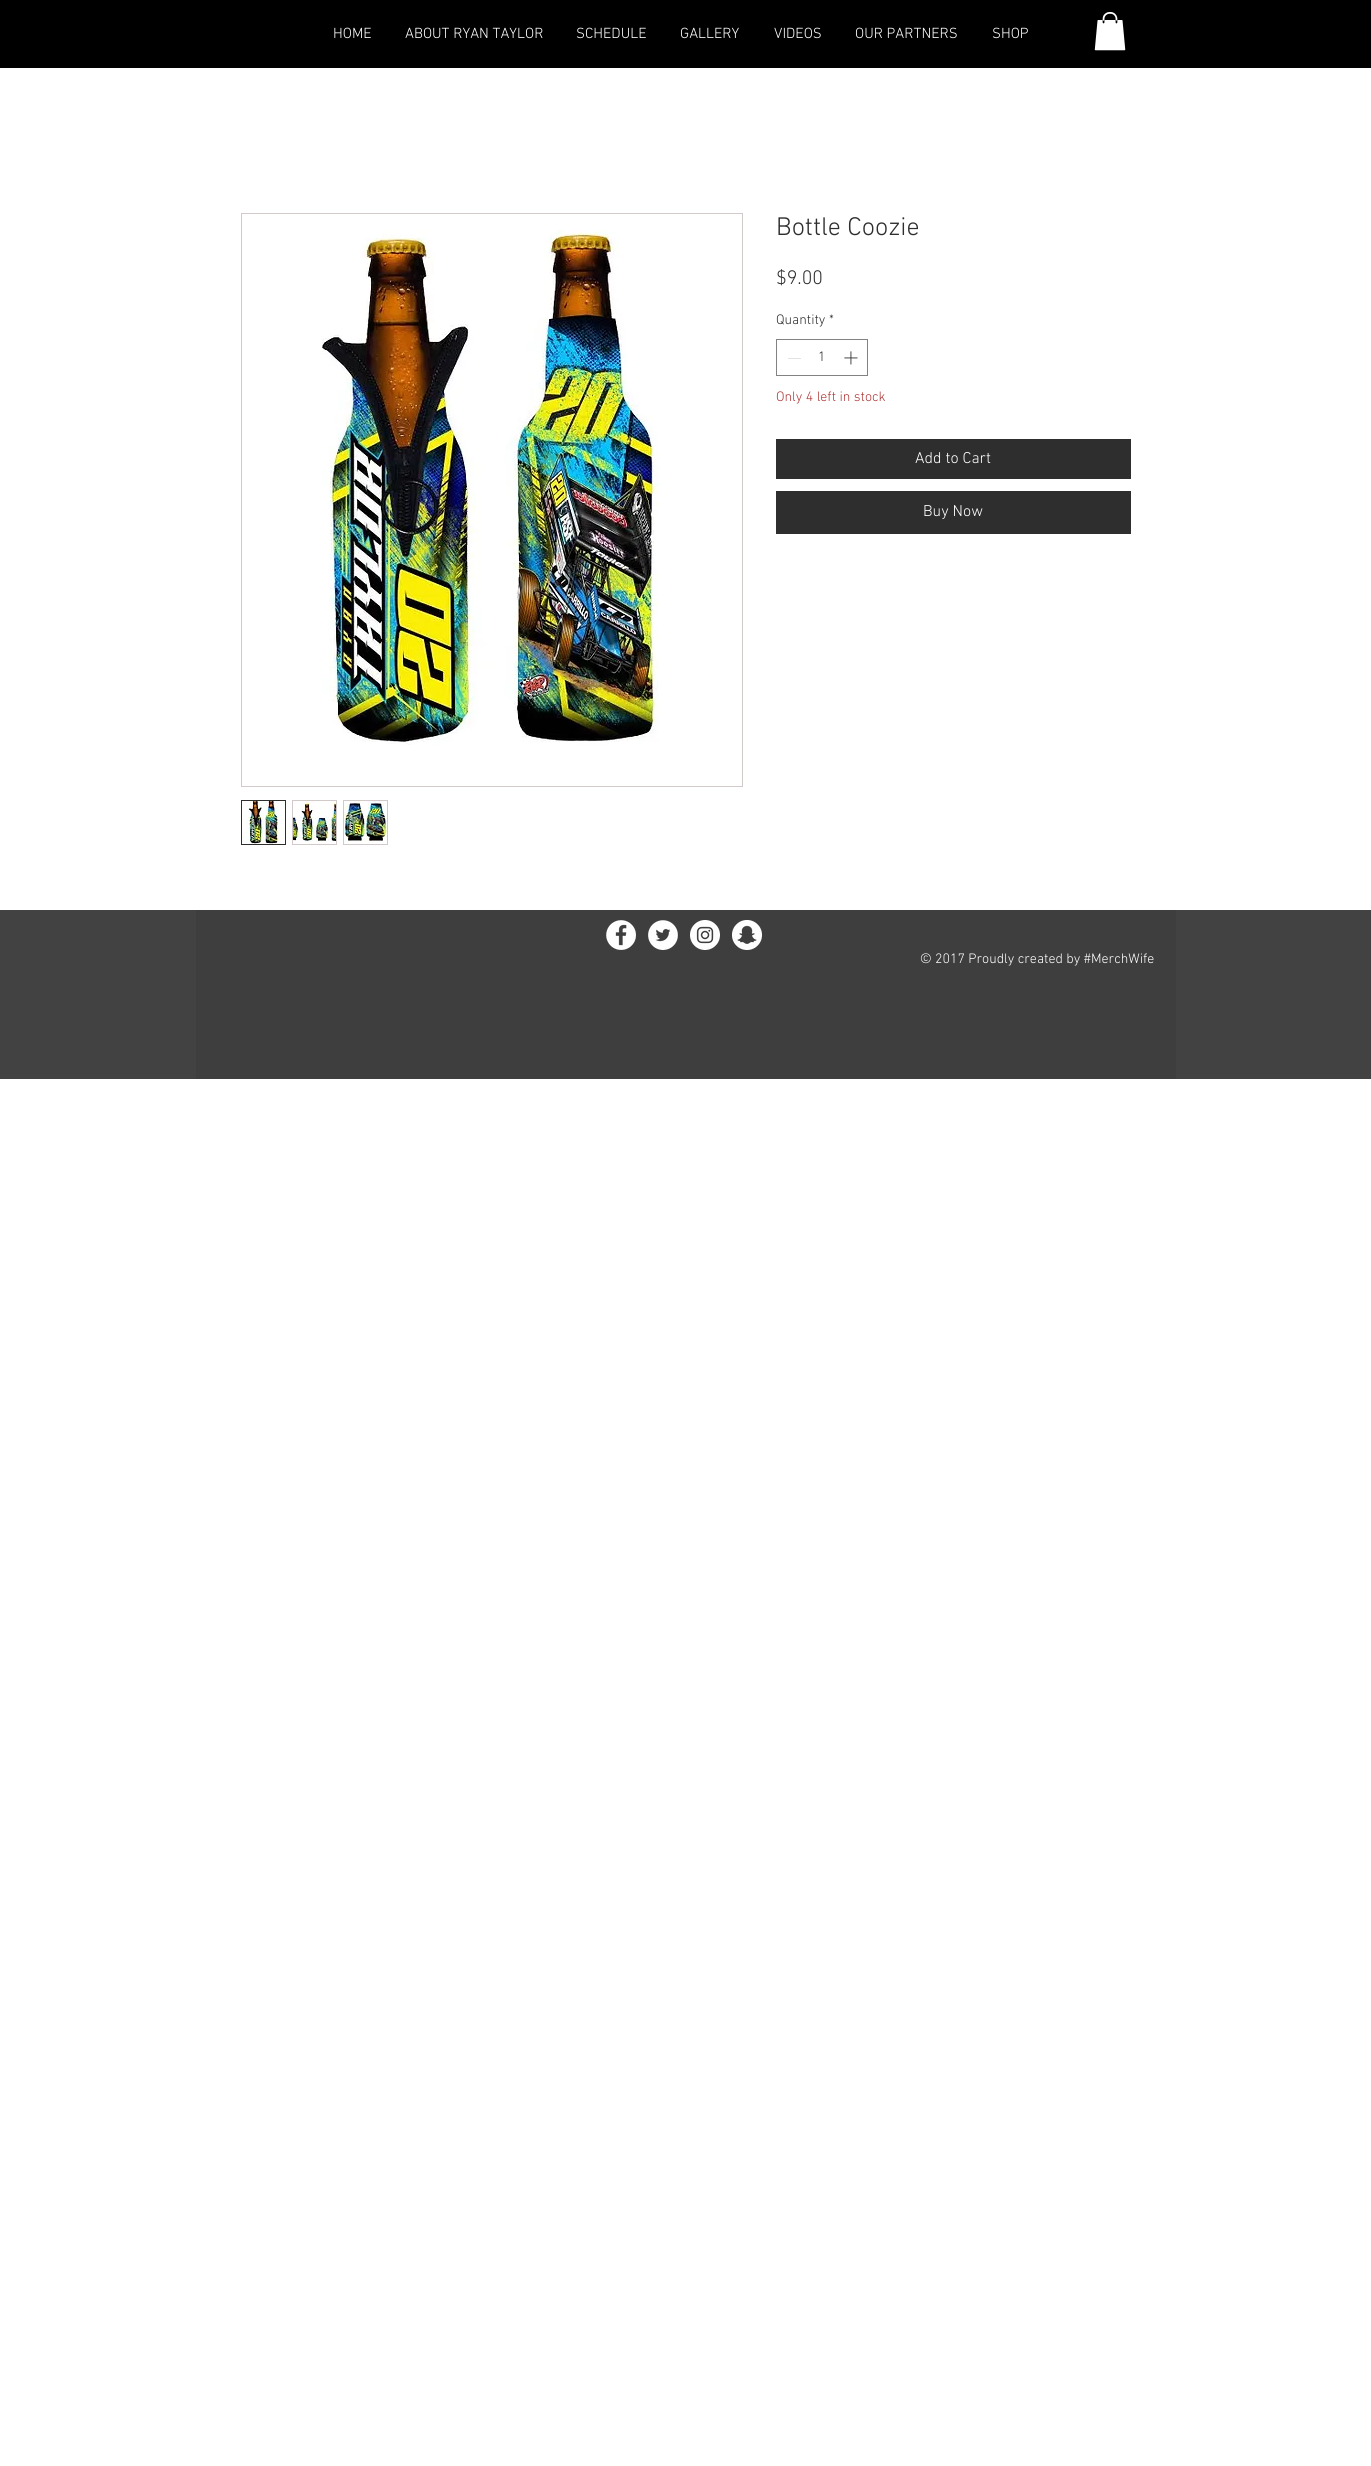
import math
import cairo


def use_color(cr, r, g, b):
  cr.set_source_rgb(r / 255, g / 255, b / 255)

def text(cr, x, y, s, family, size, color, bold=False, italic=False):
  cr.select_font_face(family, cairo.FONT_SLANT_ITALIC if italic else cairo.FONT_SLANT_NORMAL, cairo.FONT_WEIGHT_BOLD if bold else cairo.FONT_WEIGHT_NORMAL)
  cr.set_font_size(size)
  use_color(cr, *color)
  cr.move_to(x, y)
  cr.show_text(s)

def box(cr, x, y, w, h, *color):
  use_color(cr, *color)
  cr.rectangle(x, y, w, h)
  cr.fill()

def picture(cr, path, x, y, w, h):
  cr.save()
  cr.set_source_surface(cairo.ImageSurface.create_from_png(path), x, y)
  cr.rectangle(x, y, w, h)
  cr.fill()
  cr.restore()

def draw(cr):
  use_color(cr, 255, 255, 255)
  cr.paint()
  box(cr, 0, 0, 1371, 68, 0, 0, 0)
  picture(cr, "img_01.png", 1094, 12, 32, 39)
  cr.rectangle(241.5, 213.5, 501, 573)
  use_color(cr, 209, 202, 201)
  cr.set_line_width(1)
  cr.stroke()
  picture(cr, "img_02.png", 322, 230, 338, 515)
  cr.rectangle(241.5, 800.5, 44, 44)
  use_color(cr, 47, 46, 46)
  cr.stroke()
  picture(cr, "img_03.png", 242, 801, 43, 43)
  box(cr, 292, 800, 45, 45, 209, 202, 201)
  picture(cr, "img_04.png", 293, 801, 43, 43)
  box(cr, 343, 800, 45, 45, 209, 202, 201)
  picture(cr, "img_05.png", 344, 801, 43, 43)
  cr.rectangle(776.5, 339.5, 91, 36)
  use_color(cr, 130, 130, 130)
  cr.stroke()
  box(cr, 788, 358, 13, 1, 227, 227, 227)
  picture(cr, "img_06.png", 844, 351, 14, 14)
  box(cr, 776, 439, 355, 40, 47, 46, 46)
  box(cr, 776, 491, 355, 43, 47, 46, 46)
  box(cr, 0, 910, 1371, 169, 66, 66, 66)
  box(cr, 196, 910, 980, 169, 62, 62, 62)
  picture(cr, "img_07.png", 606, 920, 30, 30)
  picture(cr, "img_08.png", 648, 920, 30, 30)
  picture(cr, "img_09.png", 690, 920, 30, 30)
  picture(cr, "img_10.png", 732, 920, 30, 30)
  text(cr, 333, 38, "HOME", "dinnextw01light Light", 15, (255, 255, 255))
  text(cr, 405, 38, "ABOUT RYAN TAYLOR", "dinnextw01light Light", 15, (255, 255, 255))
  text(cr, 576, 38, "SCHEDULE", "dinnextw01light Light", 15, (255, 255, 255))
  text(cr, 680, 38, "GALLERY", "dinnextw01light Light", 15, (255, 255, 255))
  text(cr, 774, 38, "VIDEOS", "dinnextw01light Light", 15, (255, 255, 255))
  text(cr, 855, 38, "OUR PARTNERS", "dinnextw01light Light", 15, (255, 255, 255))
  text(cr, 992, 38, "SHOP", "dinnextw01light Light", 15, (255, 255, 255))
  text(cr, 776, 235, "Bottle Coozie", "dinnextw01light Light", 26, (47, 46, 46))
  text(cr, 776, 284, "$9.00", "dinnextw01light Light", 20, (47, 46, 46))
  text(cr, 776, 324, "Quantity", "dinnextw01light Light", 14, (47, 46, 46))
  text(cr, 829, 324, "*", "dinnextw01light Light", 14, (47, 46, 46))
  text(cr, 818, 361, "1", "dinnextw01light Light", 14, (47, 46, 46))
  text(cr, 776, 401, "Only 4 left in stock", "dinnextw01light Light", 14, (176, 55, 55))
  text(cr, 915, 463, "Add to Cart", "dinnextw01light Light", 16, (255, 255, 255))
  text(cr, 923, 516, "Buy Now", "dinnextw01light Light", 16, (255, 255, 255))
  text(cr, 920, 963, "© 2017 Proudly created by #MerchWife", "dinnextw01light Light", 14, (255, 255, 255))


surface = cairo.ImageSurface(cairo.FORMAT_RGB24, 1371, 2466)
cr = cairo.Context(surface)
options = cairo.FontOptions()
options.set_hint_metrics(cairo.HINT_METRICS_OFF)
options.set_hint_style(cairo.HINT_STYLE_NONE)
cr.set_font_options(options)
cr.set_miter_limit(4)
draw(cr)
surface.write_to_png("out.png")
